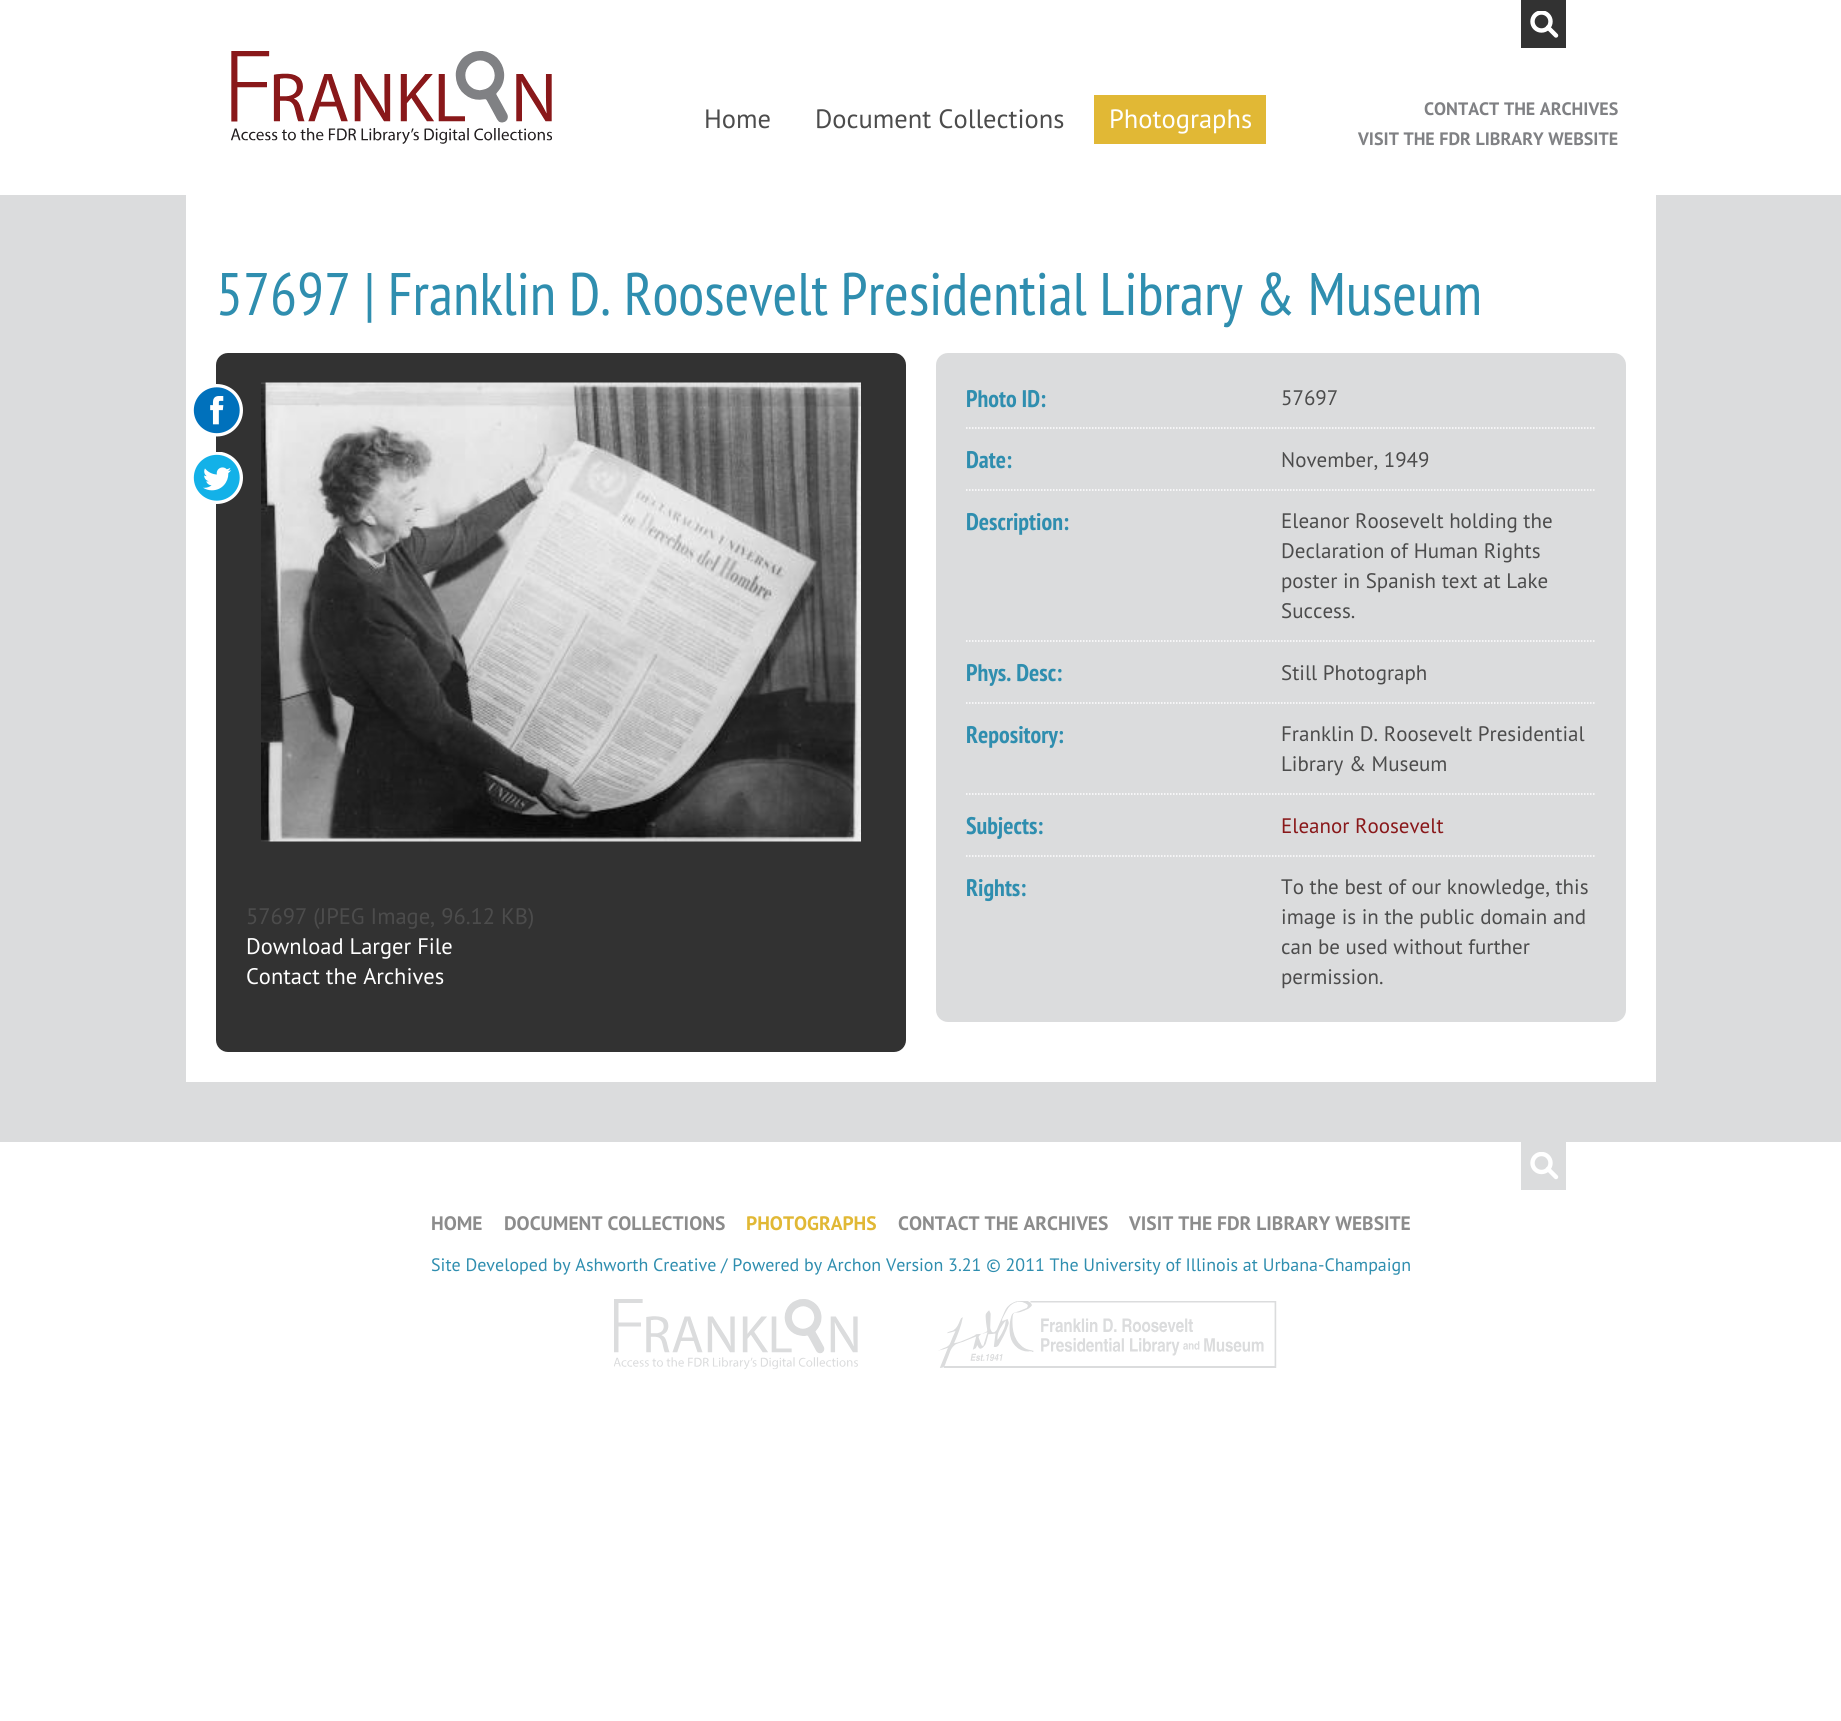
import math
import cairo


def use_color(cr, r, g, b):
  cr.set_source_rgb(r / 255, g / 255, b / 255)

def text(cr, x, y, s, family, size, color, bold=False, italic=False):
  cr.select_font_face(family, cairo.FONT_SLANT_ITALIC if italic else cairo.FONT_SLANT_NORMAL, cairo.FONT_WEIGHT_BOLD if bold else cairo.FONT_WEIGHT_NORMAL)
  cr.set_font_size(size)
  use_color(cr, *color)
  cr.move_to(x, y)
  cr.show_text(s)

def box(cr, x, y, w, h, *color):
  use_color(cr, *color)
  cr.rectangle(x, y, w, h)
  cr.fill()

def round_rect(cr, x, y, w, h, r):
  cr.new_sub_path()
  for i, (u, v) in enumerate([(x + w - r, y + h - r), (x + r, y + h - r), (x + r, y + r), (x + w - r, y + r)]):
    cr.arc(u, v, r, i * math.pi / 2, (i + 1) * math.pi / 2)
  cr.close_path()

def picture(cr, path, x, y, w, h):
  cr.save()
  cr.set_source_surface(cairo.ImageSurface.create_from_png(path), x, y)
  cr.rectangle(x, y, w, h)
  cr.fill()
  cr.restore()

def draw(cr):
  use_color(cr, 255, 255, 255)
  cr.paint()
  box(cr, 1521, 0, 45, 48, 50, 50, 50)
  cr.save()
  cr.rectangle(1530, 11, 29, 27)
  cr.clip()
  cr.arc(1541.5, 21.5, 9, 0, 2 * math.pi)
  use_color(cr, 255, 255, 255)
  cr.set_line_width(4.4)
  cr.stroke()
  cr.restore()
  cr.new_path()
  cr.move_to(1548, 27.5)
  cr.line_to(1556, 35.5)
  use_color(cr, 255, 255, 255)
  cr.set_line_width(4.4)
  cr.set_line_cap(cairo.LINE_CAP_ROUND)
  cr.stroke()
  picture(cr, "img_01.png", 231, 51, 321, 93)
  box(cr, 1094, 95, 172, 49, 225, 184, 53)
  box(cr, 0, 195, 1841, 947, 219, 220, 221)
  box(cr, 186, 195, 1470, 887, 255, 255, 255)
  use_color(cr, 50, 50, 50)
  round_rect(cr, 216, 353, 690, 699, 12)
  cr.fill()
  picture(cr, "img_02.png", 193, 384, 50, 53)
  picture(cr, "img_03.png", 193, 452, 50, 52)
  picture(cr, "img_04.png", 261, 382, 600, 460)
  use_color(cr, 219, 220, 221)
  round_rect(cr, 936, 353, 690, 669, 12)
  cr.fill()
  cr.new_path()
  cr.move_to(966, 428)
  cr.line_to(1281, 428)
  use_color(cr, 255, 255, 255)
  cr.set_line_width(1.5)
  cr.set_line_cap(cairo.LINE_CAP_BUTT)
  cr.set_dash([1.5, 1.5])
  cr.stroke()
  cr.new_path()
  cr.move_to(1281, 428)
  cr.line_to(1596, 428)
  cr.stroke()
  cr.new_path()
  cr.move_to(966, 490)
  cr.line_to(1281, 490)
  cr.stroke()
  cr.new_path()
  cr.move_to(1281, 490)
  cr.line_to(1596, 490)
  cr.stroke()
  cr.new_path()
  cr.move_to(966, 641)
  cr.line_to(1281, 641)
  cr.stroke()
  cr.new_path()
  cr.move_to(1281, 641)
  cr.line_to(1596, 641)
  cr.stroke()
  cr.new_path()
  cr.move_to(966, 703)
  cr.line_to(1281, 703)
  cr.stroke()
  cr.new_path()
  cr.move_to(1281, 703)
  cr.line_to(1596, 703)
  cr.stroke()
  cr.new_path()
  cr.move_to(966, 794)
  cr.line_to(1281, 794)
  cr.stroke()
  cr.new_path()
  cr.move_to(1281, 794)
  cr.line_to(1596, 794)
  cr.stroke()
  cr.new_path()
  cr.move_to(966, 856)
  cr.line_to(1281, 856)
  cr.stroke()
  cr.new_path()
  cr.move_to(1281, 856)
  cr.line_to(1596, 856)
  cr.stroke()
  box(cr, 1521, 1142, 45, 48, 219, 220, 221)
  cr.save()
  cr.rectangle(1530, 1152, 29, 27)
  cr.clip()
  cr.arc(1541.5, 1163, 9, 0, 2 * math.pi)
  use_color(cr, 255, 255, 255)
  cr.set_line_width(4.4)
  cr.set_dash([])
  cr.stroke()
  cr.restore()
  cr.new_path()
  cr.move_to(1548, 1169)
  cr.line_to(1556, 1177)
  use_color(cr, 255, 255, 255)
  cr.set_line_width(4.4)
  cr.set_line_cap(cairo.LINE_CAP_ROUND)
  cr.set_dash([])
  cr.stroke()
  picture(cr, "img_05.png", 614, 1299, 244, 71)
  picture(cr, "img_06.png", 938, 1301, 339, 67)
  text(cr, 704, 128, "Home", "PT Sans", 26.5, (76, 76, 76))
  text(cr, 815, 128, "Document Collections", "PT Sans", 26.5, (76, 76, 76))
  text(cr, 1109, 128, "Photographs", "PT Sans", 26.5, (255, 255, 255))
  text(cr, 1424, 115, "CONTACT THE ARCHIVES", "PT Sans", 18, (128, 129, 132), bold=True)
  text(cr, 1358, 145, "VISIT THE FDR LIBRARY WEBSITE", "PT Sans", 18, (128, 129, 132), bold=True)
  text(cr, 216, 315, "57697 | Franklin D. Roosevelt Presidential Library & Museum", "PT Sans Narrow", 60, (47, 142, 175))
  text(cr, 246, 924, "57697 (JPEG Image, 96.12 KB)", "PT Sans", 22.5, (76, 76, 76))
  text(cr, 246, 954, "Download Larger File", "PT Sans", 22.5, (255, 255, 255))
  text(cr, 246, 984, "Contact the Archives", "PT Sans", 22.5, (255, 255, 255))
  text(cr, 966, 407, "Photo ID:", "PT Sans Narrow", 24, (47, 142, 175), bold=True)
  text(cr, 1281, 405, "57697", "PT Sans", 21, (76, 76, 76))
  text(cr, 966, 468, "Date:", "PT Sans Narrow", 24, (47, 142, 175), bold=True)
  text(cr, 1281, 467, "November, 1949", "PT Sans", 21, (76, 76, 76))
  text(cr, 966, 530, "Description:", "PT Sans Narrow", 24, (47, 142, 175), bold=True)
  text(cr, 1281, 528, "Eleanor Roosevelt holding the", "PT Sans", 21, (76, 76, 76))
  text(cr, 1281, 558, "Declaration of Human Rights", "PT Sans", 21, (76, 76, 76))
  text(cr, 1281, 588, "poster in Spanish text at Lake", "PT Sans", 21, (76, 76, 76))
  text(cr, 1281, 618, "Success.", "PT Sans", 21, (76, 76, 76))
  text(cr, 966, 681, "Phys. Desc:", "PT Sans Narrow", 24, (47, 142, 175), bold=True)
  text(cr, 1281, 680, "Still Photograph", "PT Sans", 21, (76, 76, 76))
  text(cr, 966, 743, "Repository:", "PT Sans Narrow", 24, (47, 142, 175), bold=True)
  text(cr, 1281, 741, "Franklin D. Roosevelt Presidential", "PT Sans", 21, (76, 76, 76))
  text(cr, 1281, 771, "Library & Museum", "PT Sans", 21, (76, 76, 76))
  text(cr, 966, 834, "Subjects:", "PT Sans Narrow", 24, (47, 142, 175), bold=True)
  text(cr, 1281, 833, "Eleanor Roosevelt", "PT Sans", 21, (137, 24, 26))
  text(cr, 966, 896, "Rights:", "PT Sans Narrow", 24, (47, 142, 175), bold=True)
  text(cr, 1281, 894, "To the best of our knowledge, this", "PT Sans", 21, (76, 76, 76))
  text(cr, 1281, 924, "image is in the public domain and", "PT Sans", 21, (76, 76, 76))
  text(cr, 1281, 954, "can be used without further", "PT Sans", 21, (76, 76, 76))
  text(cr, 1281, 984, "permission.", "PT Sans", 21, (76, 76, 76))
  text(cr, 431, 1230, "HOME", "PT Sans", 19.5, (140, 140, 140), bold=True)
  text(cr, 504, 1230, "DOCUMENT COLLECTIONS", "PT Sans", 19.5, (140, 140, 140), bold=True)
  text(cr, 746, 1230, "PHOTOGRAPHS", "PT Sans", 19.5, (225, 184, 53), bold=True)
  text(cr, 898, 1230, "CONTACT THE ARCHIVES", "PT Sans", 19.5, (140, 140, 140), bold=True)
  text(cr, 1129, 1230, "VISIT THE FDR LIBRARY WEBSITE", "PT Sans", 19.5, (140, 140, 140), bold=True)
  text(cr, 431, 1271, "Site Developed by Ashworth Creative / Powered by Archon Version 3.21 © 2011 The University of Illinois at Urbana-Champaign", "PT Sans", 18, (47, 142, 175))


surface = cairo.ImageSurface(cairo.FORMAT_RGB24, 1841, 1721)
cr = cairo.Context(surface)
options = cairo.FontOptions()
options.set_hint_metrics(cairo.HINT_METRICS_OFF)
options.set_hint_style(cairo.HINT_STYLE_NONE)
cr.set_font_options(options)
cr.set_miter_limit(4)
draw(cr)
surface.write_to_png("out.png")
